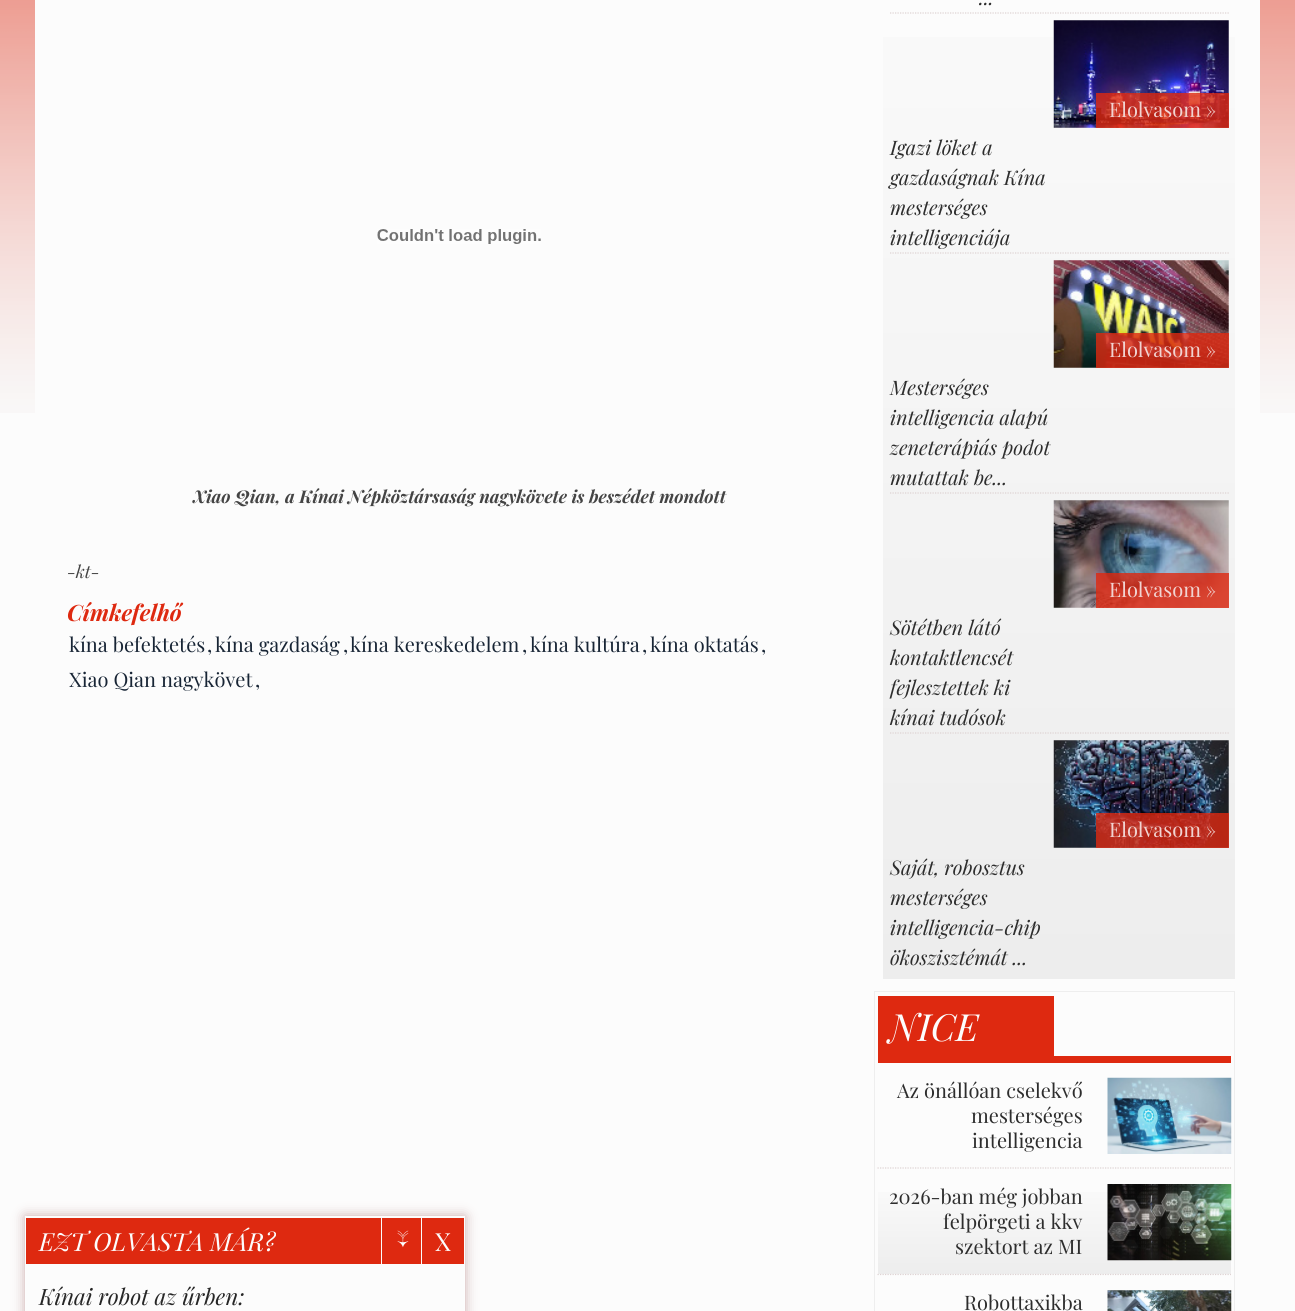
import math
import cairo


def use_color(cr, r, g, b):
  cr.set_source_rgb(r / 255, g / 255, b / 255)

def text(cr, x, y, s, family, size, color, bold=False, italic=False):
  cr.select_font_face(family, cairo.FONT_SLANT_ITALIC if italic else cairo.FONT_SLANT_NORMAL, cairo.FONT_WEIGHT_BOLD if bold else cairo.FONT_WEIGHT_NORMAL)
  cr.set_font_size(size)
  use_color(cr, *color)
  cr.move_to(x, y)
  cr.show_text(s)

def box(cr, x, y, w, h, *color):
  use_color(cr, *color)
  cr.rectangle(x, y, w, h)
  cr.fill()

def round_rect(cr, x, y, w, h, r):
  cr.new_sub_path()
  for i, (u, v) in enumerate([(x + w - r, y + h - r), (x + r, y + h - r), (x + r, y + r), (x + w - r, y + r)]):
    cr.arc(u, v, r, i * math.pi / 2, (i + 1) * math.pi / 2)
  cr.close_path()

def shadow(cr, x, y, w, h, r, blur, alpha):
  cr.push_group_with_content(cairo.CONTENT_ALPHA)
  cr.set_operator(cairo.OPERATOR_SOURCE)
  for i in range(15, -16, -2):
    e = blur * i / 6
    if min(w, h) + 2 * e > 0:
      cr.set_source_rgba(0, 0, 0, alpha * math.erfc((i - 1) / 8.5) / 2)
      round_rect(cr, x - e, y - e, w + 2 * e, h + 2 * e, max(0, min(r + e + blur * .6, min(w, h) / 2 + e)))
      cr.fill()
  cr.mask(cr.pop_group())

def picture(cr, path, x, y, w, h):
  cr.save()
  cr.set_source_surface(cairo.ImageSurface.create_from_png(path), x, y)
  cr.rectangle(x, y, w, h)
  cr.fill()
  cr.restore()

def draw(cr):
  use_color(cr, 252, 252, 252)
  cr.paint()
  picture(cr, "img_01.png", 0, 0, 1295, 413)
  box(cr, 35, 0, 1225, 413, 252, 252, 252)
  picture(cr, "img_02.png", 377, 229, 164, 15)
  cr.save()
  cr.set_fill_rule(cairo.FILL_RULE_EVEN_ODD)
  cr.new_path()
  cr.move_to(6, 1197)
  cr.line_to(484, 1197)
  cr.line_to(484, 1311)
  cr.line_to(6, 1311)
  cr.close_path()
  cr.move_to(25, 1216)
  cr.line_to(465, 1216)
  cr.line_to(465, 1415)
  cr.line_to(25, 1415)
  cr.close_path()
  cr.clip()
  use_color(cr, 204, 170, 170)
  shadow(cr, 25, 1216, 440, 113, 0, 6, 1)
  cr.restore()
  cr.rectangle(25.5, 1216.5, 439, 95)
  use_color(cr, 253, 253, 253)
  cr.set_line_width(1)
  cr.stroke()
  box(cr, 26, 1218, 355, 46, 222, 41, 16)
  box(cr, 382, 1218, 39, 46, 222, 41, 16)
  box(cr, 422, 1218, 42, 46, 222, 41, 16)
  gradient = cairo.LinearGradient(1059, -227, 1059, 979)
  gradient.add_color_stop_rgba(0, 0.992, 0.992, 0.992, 1)
  gradient.add_color_stop_rgba(1, 0.929, 0.929, 0.929, 1)
  cr.set_source(gradient)
  cr.rectangle(883, 37, 352, 942)
  cr.fill()
  cr.new_path()
  cr.move_to(890, 13)
  cr.line_to(1229, 13)
  use_color(cr, 221, 210, 210)
  cr.set_line_width(1.2)
  cr.set_dash([1.25, 1.25])
  cr.stroke()
  cr.new_path()
  cr.move_to(890, 253)
  cr.line_to(1229, 253)
  cr.stroke()
  picture(cr, "img_03.png", 1053, 20, 176, 108)
  cr.set_source_rgba(0.871, 0.161, 0.063, 0.8)
  cr.rectangle(1096, 93, 133, 35)
  cr.fill()
  cr.new_path()
  cr.move_to(890, 493)
  cr.line_to(1229, 493)
  use_color(cr, 221, 210, 210)
  cr.stroke()
  picture(cr, "img_04.png", 1053, 260, 176, 108)
  cr.set_source_rgba(0.871, 0.161, 0.063, 0.8)
  cr.rectangle(1096, 333, 133, 35)
  cr.fill()
  cr.new_path()
  cr.move_to(890, 733)
  cr.line_to(1229, 733)
  use_color(cr, 221, 210, 210)
  cr.stroke()
  picture(cr, "img_05.png", 1053, 500, 176, 108)
  cr.set_source_rgba(0.871, 0.161, 0.063, 0.8)
  cr.rectangle(1096, 573, 133, 35)
  cr.fill()
  picture(cr, "img_06.png", 1053, 740, 176, 108)
  cr.rectangle(1096, 813, 133, 35)
  cr.fill()
  cr.rectangle(874.5, 991.5, 360, 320)
  use_color(cr, 238, 238, 238)
  cr.set_line_width(1)
  cr.set_dash([])
  cr.stroke()
  box(cr, 878, 1056, 353, 7, 222, 41, 16)
  box(cr, 878, 996, 176, 60, 222, 41, 16)
  cr.new_path()
  cr.move_to(877.5, 1168)
  cr.line_to(1231, 1168)
  use_color(cr, 221, 210, 210)
  cr.set_line_width(1.2)
  cr.set_dash([1.25, 1.25])
  cr.stroke()
  picture(cr, "img_07.png", 1107, 1077, 125, 77)
  gradient = cairo.LinearGradient(1054, 1175, 1054, 1274)
  gradient.add_color_stop_rgba(0, 0.988, 0.988, 0.988, 1)
  gradient.add_color_stop_rgba(1, 0.929, 0.929, 0.929, 1)
  cr.set_source(gradient)
  cr.rectangle(878, 1192, 353, 82)
  cr.fill()
  cr.new_path()
  cr.move_to(877.5, 1274.5)
  cr.line_to(1231, 1274.5)
  use_color(cr, 221, 210, 210)
  cr.stroke()
  picture(cr, "img_08.png", 1107, 1184, 125, 77)
  picture(cr, "img_09.png", 1107, 1290, 125, 21)
  text(cr, 193, 503, "Xiao Qian, a Kínai Népköztársaság nagykövete is beszédet mondott", "Playfair Display", 17.5, (68, 68, 68), bold=True, italic=True)
  text(cr, 67, 578, "-kt-", "Playfair Display", 17.5, (68, 68, 68), italic=True)
  text(cr, 67, 621, "Címkefelhő", "Playfair Display", 22.5, (222, 41, 16), bold=True, italic=True)
  text(cr, 69, 652, "kína befektetés", "Playfair Display", 20, (24, 37, 53))
  text(cr, 207, 652, ",", "Playfair Display", 20, (24, 37, 53))
  text(cr, 215, 652, "kína gazdaság", "Playfair Display", 20, (24, 37, 53))
  text(cr, 343, 652, ",", "Playfair Display", 20, (24, 37, 53))
  text(cr, 350, 652, "kína kereskedelem", "Playfair Display", 20, (24, 37, 53))
  text(cr, 522, 652, ",", "Playfair Display", 20, (24, 37, 53))
  text(cr, 530, 652, "kína kultúra", "Playfair Display", 20, (24, 37, 53))
  text(cr, 642, 652, ",", "Playfair Display", 20, (24, 37, 53))
  text(cr, 650, 652, "kína oktatás", "Playfair Display", 20, (24, 37, 53))
  text(cr, 761, 652, ",", "Playfair Display", 20, (24, 37, 53))
  text(cr, 69, 687, "Xiao Qian nagykövet", "Playfair Display", 20, (24, 37, 53))
  text(cr, 255, 687, ",", "Playfair Display", 20, (24, 37, 53))
  text(cr, 39, 1251, "EZT OLVASTA MÁR?", "Playfair Display", 25, (253, 253, 253), italic=True)
  text(cr, 396, 1247, "↓", "Playfair Display", 28, (253, 253, 253))
  text(cr, 435, 1251, "X", "Playfair Display", 25, (253, 253, 253))
  text(cr, 39, 1305, "Kínai robot az űrben:", "Playfair Display", 22.5, (38, 38, 38), italic=True)
  text(cr, 979, 5, "...", "Playfair Display", 20, (45, 45, 45), italic=True)
  text(cr, 1109, 117, "Elolvasom »", "Playfair Display", 20, (241, 212, 210))
  text(cr, 890, 155, "Igazi löket a", "Playfair Display", 20, (45, 45, 45), italic=True)
  text(cr, 890, 185, "gazdaságnak Kína", "Playfair Display", 20, (45, 45, 45), italic=True)
  text(cr, 890, 215, "mesterséges", "Playfair Display", 20, (45, 45, 45), italic=True)
  text(cr, 890, 245, "intelligenciája", "Playfair Display", 20, (45, 45, 45), italic=True)
  text(cr, 1109, 357, "Elolvasom »", "Playfair Display", 20, (241, 212, 210))
  text(cr, 890, 395, "Mesterséges", "Playfair Display", 20, (45, 45, 45), italic=True)
  text(cr, 890, 425, "intelligencia alapú", "Playfair Display", 20, (45, 45, 45), italic=True)
  text(cr, 890, 455, "zeneterápiás podot", "Playfair Display", 20, (45, 45, 45), italic=True)
  text(cr, 890, 485, "mutattak be...", "Playfair Display", 20, (45, 45, 45), italic=True)
  text(cr, 1109, 597, "Elolvasom »", "Playfair Display", 20, (241, 212, 210))
  text(cr, 890, 635, "Sötétben látó", "Playfair Display", 20, (45, 45, 45), italic=True)
  text(cr, 890, 665, "kontaktlencsét", "Playfair Display", 20, (45, 45, 45), italic=True)
  text(cr, 890, 695, "fejlesztettek ki", "Playfair Display", 20, (45, 45, 45), italic=True)
  text(cr, 890, 725, "kínai tudósok", "Playfair Display", 20, (45, 45, 45), italic=True)
  text(cr, 1109, 837, "Elolvasom »", "Playfair Display", 20, (241, 212, 210))
  text(cr, 890, 875, "Saját, robosztus", "Playfair Display", 20, (45, 45, 45), italic=True)
  text(cr, 890, 905, "mesterséges", "Playfair Display", 20, (45, 45, 45), italic=True)
  text(cr, 890, 935, "intelligencia-chip", "Playfair Display", 20, (45, 45, 45), italic=True)
  text(cr, 890, 965, "ökoszisztémát ...", "Playfair Display", 20, (45, 45, 45), italic=True)
  text(cr, 889, 1041, "NICE", "Playfair Display", 37.5, (253, 253, 253), italic=True)
  text(cr, 897, 1098, "Az önállóan cselekvő", "Playfair Display", 20, (45, 45, 45))
  text(cr, 971, 1123, "mesterséges", "Playfair Display", 20, (45, 45, 45))
  text(cr, 972, 1148, "intelligencia", "Playfair Display", 20, (45, 45, 45))
  text(cr, 889, 1204, "2026-ban még jobban", "Playfair Display", 20, (45, 45, 45))
  text(cr, 943, 1229, "felpörgeti a kkv", "Playfair Display", 20, (45, 45, 45))
  text(cr, 955, 1254, "szektort az MI", "Playfair Display", 20, (45, 45, 45))
  text(cr, 964, 1310, "Robottaxikba", "Playfair Display", 20, (45, 45, 45))


surface = cairo.ImageSurface(cairo.FORMAT_RGB24, 1295, 1311)
cr = cairo.Context(surface)
options = cairo.FontOptions()
options.set_hint_metrics(cairo.HINT_METRICS_OFF)
options.set_hint_style(cairo.HINT_STYLE_NONE)
cr.set_font_options(options)
cr.set_miter_limit(4)
draw(cr)
surface.write_to_png("out.png")
